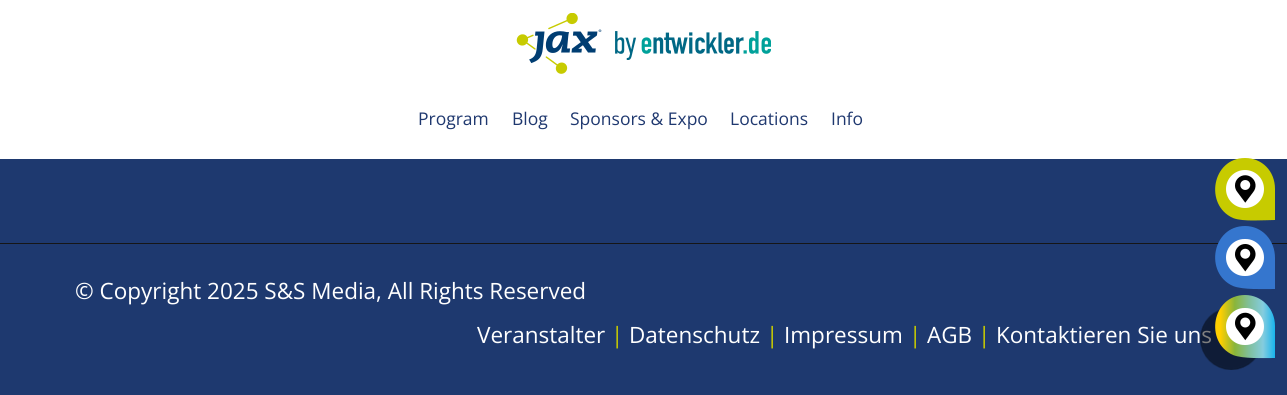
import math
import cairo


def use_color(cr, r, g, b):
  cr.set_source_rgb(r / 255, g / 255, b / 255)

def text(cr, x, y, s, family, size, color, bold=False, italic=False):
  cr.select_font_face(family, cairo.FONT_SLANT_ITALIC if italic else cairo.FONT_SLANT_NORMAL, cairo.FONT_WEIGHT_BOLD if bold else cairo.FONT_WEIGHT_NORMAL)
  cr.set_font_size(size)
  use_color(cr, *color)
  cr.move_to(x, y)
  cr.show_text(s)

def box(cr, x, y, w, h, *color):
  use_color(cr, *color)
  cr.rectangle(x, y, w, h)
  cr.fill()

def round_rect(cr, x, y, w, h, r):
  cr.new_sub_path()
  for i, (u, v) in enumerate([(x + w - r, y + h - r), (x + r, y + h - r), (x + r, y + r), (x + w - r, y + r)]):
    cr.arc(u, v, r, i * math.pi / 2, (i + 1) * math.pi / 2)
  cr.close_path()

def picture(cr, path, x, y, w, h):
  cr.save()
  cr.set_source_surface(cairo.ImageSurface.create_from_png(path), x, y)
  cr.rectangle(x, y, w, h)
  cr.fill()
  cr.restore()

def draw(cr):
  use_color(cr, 30, 57, 111)
  cr.paint()
  box(cr, 0, 0, 1287, 159, 255, 255, 255)
  picture(cr, "img_01.png", 516, 13, 255, 61)
  box(cr, 0, 243, 1287, 1, 22, 22, 22)
  use_color(cr, 199, 203, 0)
  cr.new_path()
  cr.move_to(1245, 158)
  cr.curve_to(1262, 158, 1275, 171, 1275, 189)
  cr.line_to(1275, 220)
  cr.curve_to(1264, 220, 1243, 222, 1233, 218)
  cr.curve_to(1204, 205, 1212, 158, 1245, 158)
  cr.close_path()
  cr.fill()
  use_color(cr, 255, 255, 255)
  cr.arc(1245, 189, 19, 0, 2 * math.pi)
  cr.fill()
  picture(cr, "img_02.png", 1235, 175, 21, 28)
  use_color(cr, 53, 118, 206)
  cr.new_path()
  cr.move_to(1245, 226)
  cr.curve_to(1262, 226, 1275, 240, 1275, 258)
  cr.line_to(1275, 289)
  cr.curve_to(1264, 289, 1243, 290, 1233, 286)
  cr.curve_to(1204, 273, 1212, 226, 1245, 226)
  cr.close_path()
  cr.fill()
  use_color(cr, 255, 255, 255)
  round_rect(cr, 1226, 239, 38, 37, 18.5)
  cr.fill()
  picture(cr, "img_03.png", 1235, 244, 21, 28)
  text(cr, 418, 125, "Program", "Open Sans", 17.5, (31, 56, 111))
  text(cr, 512, 125, "Blog", "Open Sans", 17.5, (31, 56, 111))
  text(cr, 570, 125, "Sponsors & Expo", "Open Sans", 17.5, (31, 56, 111))
  text(cr, 730, 125, "Locations", "Open Sans", 17.5, (31, 56, 111))
  text(cr, 831, 125, "Info", "Open Sans", 17.5, (31, 56, 111))
  text(cr, 75, 299, "© Copyright 2025 S&S Media, All Rights Reserved", "Open Sans", 22.5, (255, 255, 255))
  text(cr, 477, 343, "Veranstalter", "Open Sans", 22.5, (255, 255, 255))
  text(cr, 611, 343, "|", "Open Sans", 22.5, (200, 203, 0))
  text(cr, 629, 343, "Datenschutz", "Open Sans", 22.5, (255, 255, 255))
  text(cr, 766, 343, "|", "Open Sans", 22.5, (200, 203, 0))
  text(cr, 784, 343, "Impressum", "Open Sans", 22.5, (255, 255, 255))
  text(cr, 909, 343, "|", "Open Sans", 22.5, (200, 203, 0))
  text(cr, 927, 343, "AGB", "Open Sans", 22.5, (255, 255, 255))
  text(cr, 978, 343, "|", "Open Sans", 22.5, (200, 203, 0))
  text(cr, 996, 343, "Kontaktieren Sie uns", "Open Sans", 22.5, (255, 255, 255))
  picture(cr, "img_05.png", 1200, 309, 57, 61)
  gradient = cairo.LinearGradient(1215, 326, 1275, 326)
  gradient.add_color_stop_rgba(0.09, 1, 0.812, 0, 1)
  gradient.add_color_stop_rgba(0.33, 0.541, 0.71, 0.227, 1)
  gradient.add_color_stop_rgba(0.57, 0.502, 0.749, 0.612, 1)
  gradient.add_color_stop_rgba(0.8, 0.518, 0.8, 0.871, 1)
  gradient.add_color_stop_rgba(1, 0.094, 0.706, 0.933, 1)
  cr.set_source(gradient)
  cr.new_path()
  cr.move_to(1245, 295)
  cr.curve_to(1262, 295, 1275, 309, 1275, 326)
  cr.line_to(1275, 358)
  cr.curve_to(1264, 358, 1243, 359, 1233, 355)
  cr.curve_to(1204, 342, 1212, 295, 1245, 295)
  cr.close_path()
  cr.fill()
  use_color(cr, 255, 255, 255)
  round_rect(cr, 1226, 308, 38, 37, 18.5)
  cr.fill()
  picture(cr, "img_04.png", 1235, 312, 21, 29)


surface = cairo.ImageSurface(cairo.FORMAT_RGB24, 1287, 395)
cr = cairo.Context(surface)
options = cairo.FontOptions()
options.set_hint_metrics(cairo.HINT_METRICS_OFF)
options.set_hint_style(cairo.HINT_STYLE_NONE)
cr.set_font_options(options)
cr.set_miter_limit(4)
draw(cr)
surface.write_to_png("out.png")
